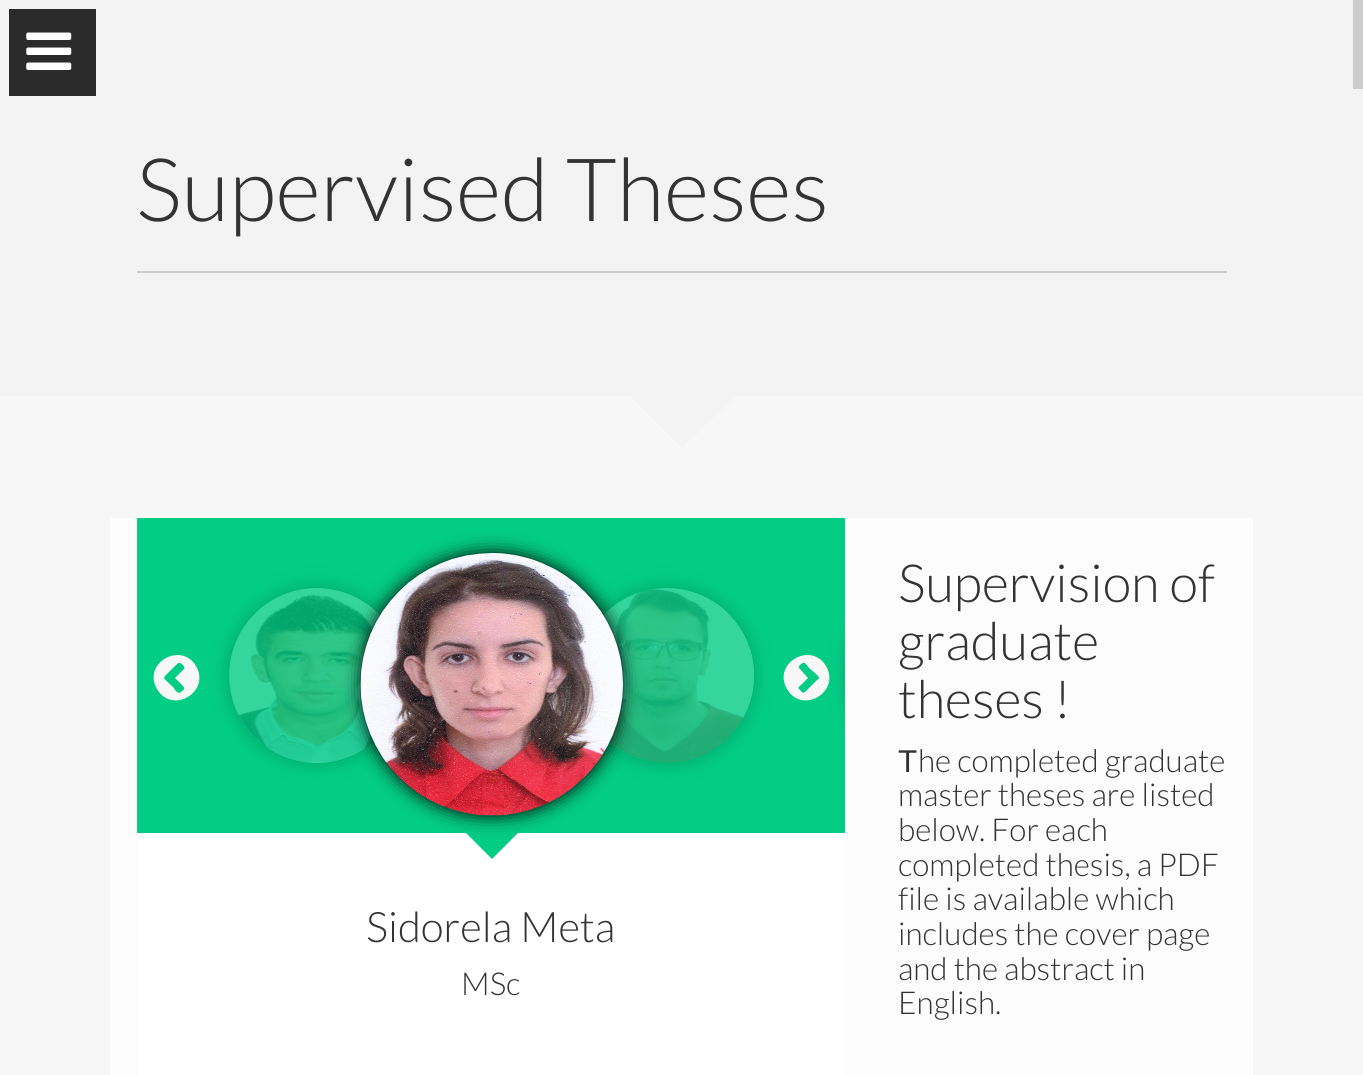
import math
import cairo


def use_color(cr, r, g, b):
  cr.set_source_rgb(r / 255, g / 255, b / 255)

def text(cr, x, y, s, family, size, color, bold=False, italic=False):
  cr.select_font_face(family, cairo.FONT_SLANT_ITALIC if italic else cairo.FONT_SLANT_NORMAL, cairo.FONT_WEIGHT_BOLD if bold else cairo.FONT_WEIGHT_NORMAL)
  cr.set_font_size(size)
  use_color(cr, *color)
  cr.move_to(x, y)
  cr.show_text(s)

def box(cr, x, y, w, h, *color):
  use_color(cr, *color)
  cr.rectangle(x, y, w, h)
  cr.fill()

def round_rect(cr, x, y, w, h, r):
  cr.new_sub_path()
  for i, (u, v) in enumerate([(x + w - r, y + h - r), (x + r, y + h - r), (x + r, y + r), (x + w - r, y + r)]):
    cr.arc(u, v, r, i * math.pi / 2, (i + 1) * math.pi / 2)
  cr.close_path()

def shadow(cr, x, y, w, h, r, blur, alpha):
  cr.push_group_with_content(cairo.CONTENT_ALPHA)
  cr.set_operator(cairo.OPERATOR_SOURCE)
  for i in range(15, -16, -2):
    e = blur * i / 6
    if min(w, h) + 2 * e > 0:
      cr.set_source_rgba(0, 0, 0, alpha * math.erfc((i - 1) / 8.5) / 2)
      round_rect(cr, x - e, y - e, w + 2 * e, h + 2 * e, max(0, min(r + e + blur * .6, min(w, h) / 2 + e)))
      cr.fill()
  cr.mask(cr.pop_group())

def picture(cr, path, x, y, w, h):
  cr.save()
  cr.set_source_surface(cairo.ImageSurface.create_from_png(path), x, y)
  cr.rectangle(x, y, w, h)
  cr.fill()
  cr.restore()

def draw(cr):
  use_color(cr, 247, 247, 247)
  cr.paint()
  box(cr, 0, 0, 1363, 396, 243, 243, 243)
  box(cr, 9, 9, 87, 87, 43, 43, 43)
  picture(cr, "img_01.png", 26, 32, 46, 38)
  box(cr, 1353, 0, 10, 89, 205, 205, 205)
  box(cr, 137, 271, 1090, 2, 204, 204, 204)
  use_color(cr, 243, 243, 243)
  cr.new_path()
  cr.move_to(630, 396)
  cr.line_to(735, 396)
  cr.line_to(682, 448)
  cr.close_path()
  cr.fill()
  box(cr, 110, 518, 1143, 557, 252, 252, 252)
  box(cr, 137, 518, 708, 315, 3, 204, 133)
  cr.save()
  cr.set_fill_rule(cairo.FILL_RULE_EVEN_ODD)
  cr.new_path()
  cr.move_to(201, 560)
  cr.line_to(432, 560)
  cr.line_to(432, 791)
  cr.line_to(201, 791)
  cr.close_path()
  cr.move_to(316.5, 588)
  cr.curve_to(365, 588, 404, 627, 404, 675.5)
  cr.curve_to(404, 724, 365, 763, 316.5, 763)
  cr.curve_to(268, 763, 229, 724, 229, 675.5)
  cr.curve_to(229, 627, 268, 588, 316.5, 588)
  cr.close_path()
  cr.clip()
  use_color(cr, 2, 163, 106)
  shadow(cr, 229, 588, 175, 175, 87.5, 9, 1)
  cr.restore()
  picture(cr, "img_02.png", 229, 588, 152, 175)
  cr.save()
  cr.set_fill_rule(cairo.FILL_RULE_EVEN_ODD)
  cr.new_path()
  cr.move_to(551, 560)
  cr.line_to(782, 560)
  cr.line_to(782, 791)
  cr.line_to(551, 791)
  cr.close_path()
  cr.move_to(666.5, 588)
  cr.curve_to(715, 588, 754, 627, 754, 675.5)
  cr.curve_to(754, 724, 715, 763, 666.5, 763)
  cr.curve_to(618, 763, 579, 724, 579, 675.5)
  cr.curve_to(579, 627, 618, 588, 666.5, 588)
  cr.close_path()
  cr.clip()
  use_color(cr, 2, 163, 106)
  shadow(cr, 579, 588, 175, 175, 87.5, 9, 1)
  cr.restore()
  picture(cr, "img_04.png", 603, 588, 151, 175)
  use_color(cr, 255, 255, 255)
  cr.new_path()
  cr.move_to(141, 833)
  cr.line_to(841, 833)
  cr.curve_to(843, 833, 845, 835, 845, 837)
  cr.line_to(845, 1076)
  cr.line_to(137, 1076)
  cr.line_to(137, 837)
  cr.curve_to(137, 835, 139, 833, 141, 833)
  cr.close_path()
  cr.fill()
  use_color(cr, 3, 204, 133)
  cr.new_path()
  cr.move_to(466, 833)
  cr.line_to(518, 833)
  cr.line_to(492, 859)
  cr.close_path()
  cr.fill()
  use_color(cr, 0, 0, 0)
  shadow(cr, 361, 553, 262, 263, 131, 9, 1)
  picture(cr, "img_03.png", 360, 553, 263, 263)
  cr.save()
  cr.rectangle(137, 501, 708, 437)
  cr.clip()
  use_color(cr, 2, 163, 106)
  shadow(cr, 847, 588, 175, 175, 87.5, 9, 1)
  cr.restore()
  use_color(cr, 247, 247, 247)
  cr.new_path()
  cr.move_to(181, 692)
  cr.curve_to(184, 689, 186, 689, 182, 685)
  cr.line_to(175, 678)
  cr.line_to(184, 669)
  cr.curve_to(185, 667, 183, 665, 182, 664)
  cr.curve_to(179, 662, 178, 663, 176, 665)
  cr.line_to(171, 670)
  cr.curve_to(161, 680, 162, 676, 174, 688)
  cr.curve_to(174, 689, 178, 695, 181, 692)
  cr.close_path()
  cr.move_to(196, 666)
  cr.curve_to(211, 692, 172, 715, 157, 689)
  cr.curve_to(142, 663, 181, 641, 196, 666)
  cr.close_path()
  cr.fill()
  cr.new_path()
  cr.move_to(805, 692)
  cr.line_to(816, 681)
  cr.curve_to(820, 678, 820, 678, 816, 674)
  cr.line_to(809, 668)
  cr.curve_to(806, 664, 805, 661, 801, 664)
  cr.curve_to(798, 667, 798, 667, 801, 670)
  cr.line_to(808, 678)
  cr.line_to(802, 684)
  cr.curve_to(799, 687, 797, 687, 800, 690)
  cr.curve_to(801, 691, 803, 694, 805, 692)
  cr.close_path()
  cr.move_to(826, 666)
  cr.curve_to(841, 692, 802, 715, 787, 689)
  cr.curve_to(772, 663, 811, 641, 826, 666)
  cr.close_path()
  cr.fill()
  text(cr, 136, 221, "Supervised Theses", "Lato Light", 87.5, (51, 51, 51))
  text(cr, 366, 942, "Sidorela Meta", "Lato Light", 42, (51, 51, 51))
  text(cr, 461, 995, "MSc", "Lato Light", 31.5, (51, 51, 51))
  text(cr, 898, 602, "Supervision of", "Lato Light", 52.5, (51, 51, 51))
  text(cr, 898, 660, "graduate", "Lato Light", 52.5, (51, 51, 51))
  text(cr, 898, 718, "theses !", "Lato Light", 52.5, (51, 51, 51))
  text(cr, 898, 772, "Τ", "Liberation Sans", 31.5, (51, 51, 51))
  text(cr, 918, 772, "he completed graduate", "Lato Light", 31.5, (51, 51, 51))
  text(cr, 898, 806, "master theses are listed", "Lato Light", 31.5, (51, 51, 51))
  text(cr, 898, 841, "below. For each", "Lato Light", 31.5, (51, 51, 51))
  text(cr, 898, 876, "completed thesis, a PDF", "Lato Light", 31.5, (51, 51, 51))
  text(cr, 898, 910, "file is available which", "Lato Light", 31.5, (51, 51, 51))
  text(cr, 898, 945, "includes the cover page", "Lato Light", 31.5, (51, 51, 51))
  text(cr, 898, 980, "and the abstract in", "Lato Light", 31.5, (51, 51, 51))
  text(cr, 898, 1014, "English.", "Lato Light", 31.5, (51, 51, 51))


surface = cairo.ImageSurface(cairo.FORMAT_RGB24, 1363, 1075)
cr = cairo.Context(surface)
options = cairo.FontOptions()
options.set_hint_metrics(cairo.HINT_METRICS_OFF)
options.set_hint_style(cairo.HINT_STYLE_NONE)
cr.set_font_options(options)
cr.set_miter_limit(4)
draw(cr)
surface.write_to_png("out.png")
